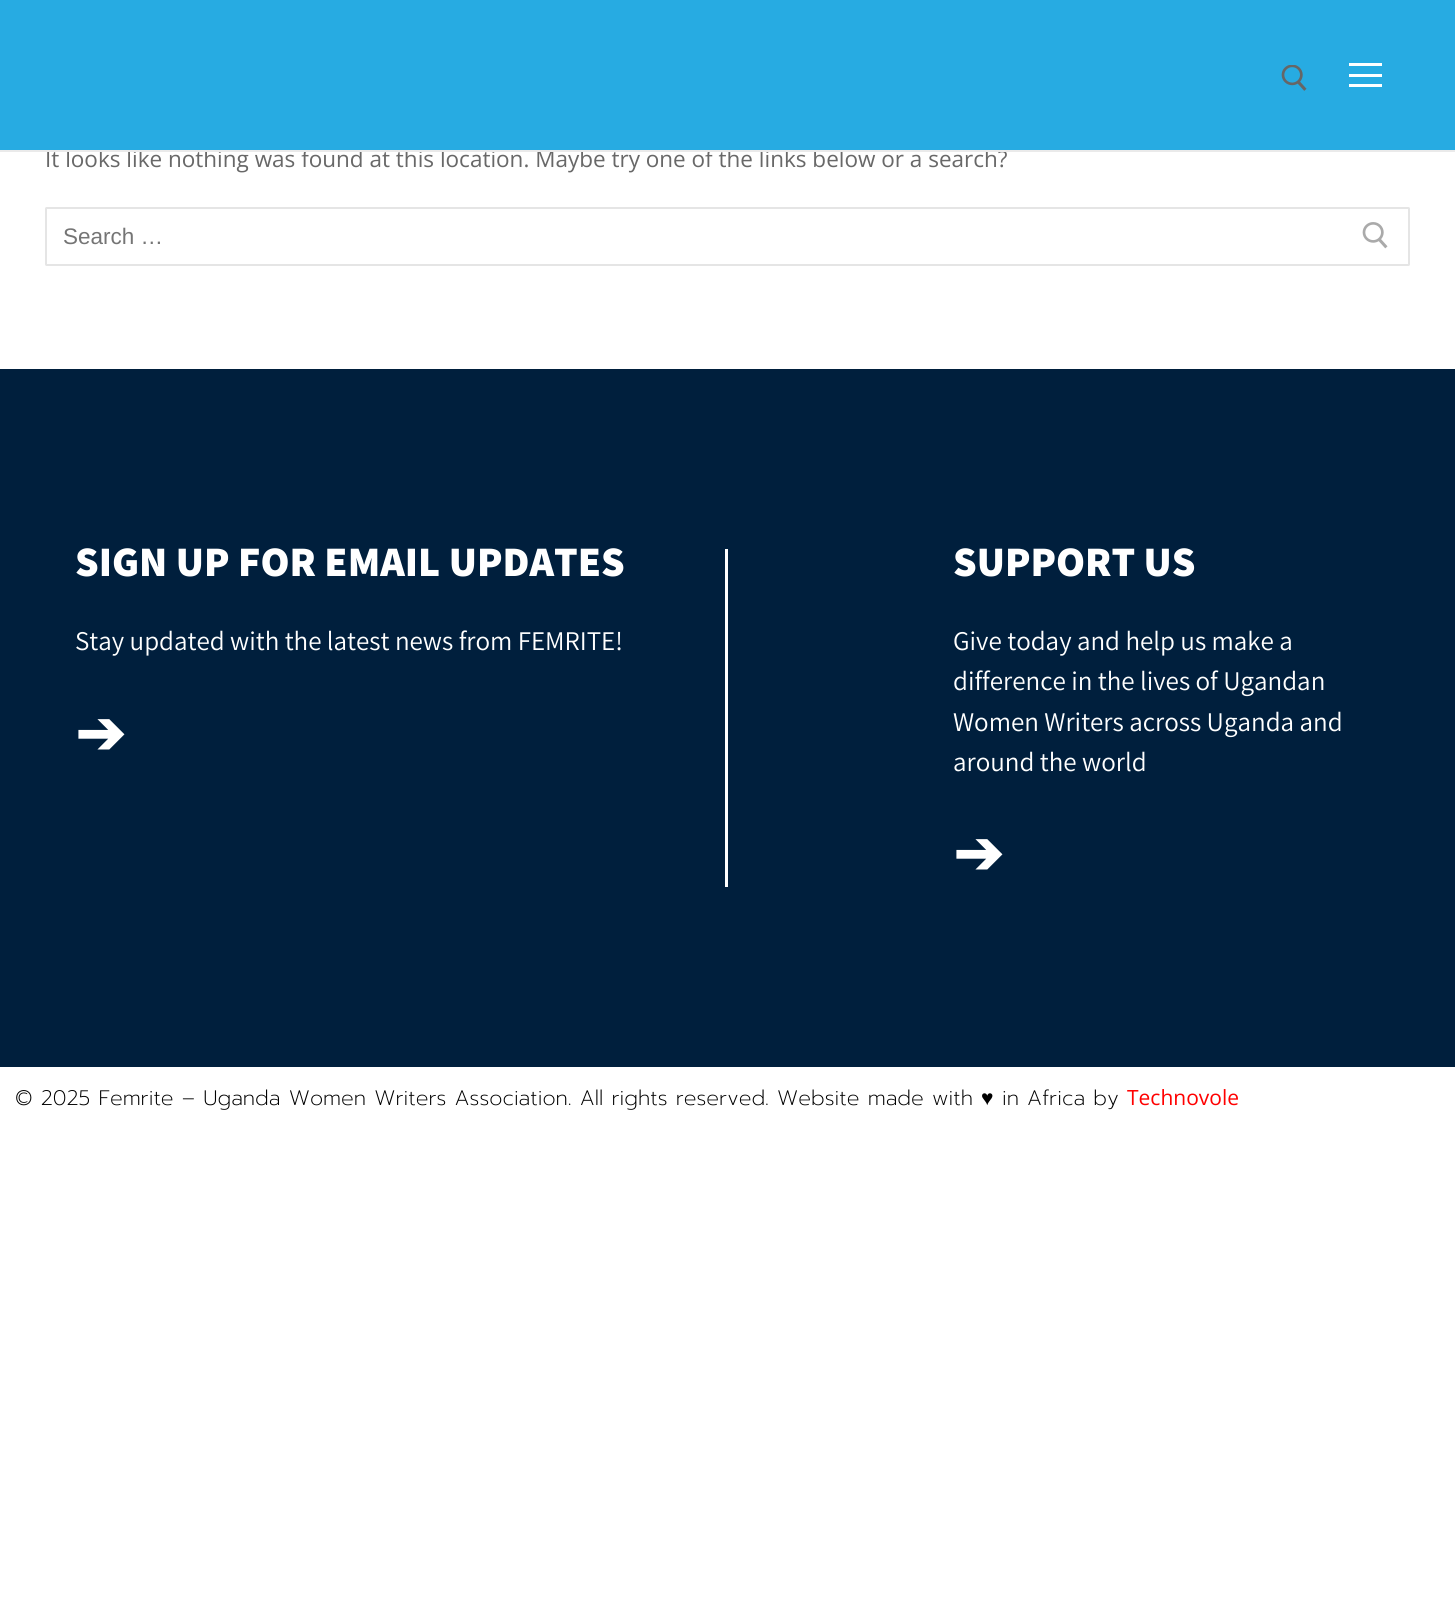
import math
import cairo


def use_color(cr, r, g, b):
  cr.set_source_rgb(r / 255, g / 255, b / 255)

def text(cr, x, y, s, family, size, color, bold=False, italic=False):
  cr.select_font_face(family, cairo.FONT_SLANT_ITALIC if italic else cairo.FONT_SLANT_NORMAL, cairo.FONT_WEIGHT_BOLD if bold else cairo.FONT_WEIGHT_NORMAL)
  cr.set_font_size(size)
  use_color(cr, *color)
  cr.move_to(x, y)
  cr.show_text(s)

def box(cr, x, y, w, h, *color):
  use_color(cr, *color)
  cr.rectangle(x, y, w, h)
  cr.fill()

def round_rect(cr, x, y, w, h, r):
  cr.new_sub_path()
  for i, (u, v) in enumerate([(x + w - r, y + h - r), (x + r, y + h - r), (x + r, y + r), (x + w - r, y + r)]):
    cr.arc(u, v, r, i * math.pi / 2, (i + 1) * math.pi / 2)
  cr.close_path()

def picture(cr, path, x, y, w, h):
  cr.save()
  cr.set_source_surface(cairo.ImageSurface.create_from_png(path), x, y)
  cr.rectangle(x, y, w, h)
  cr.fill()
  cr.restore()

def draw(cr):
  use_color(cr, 255, 255, 255)
  cr.paint()
  round_rect(cr, 46, 208, 1363, 57, 0.5)
  use_color(cr, 229, 229, 229)
  cr.stroke()
  picture(cr, "img_02.png", 1362, 222, 26, 27)
  box(cr, 0, 369, 1455, 698, 0, 31, 61)
  box(cr, 725, 549, 3, 338, 255, 255, 255)
  text(cr, 45, 167, "It looks like nothing was found at this location. Maybe try one of the links below or a search?", "Open Sans", 22.5, (104, 104, 104))
  box(cr, 0, 0, 1455, 150, 39, 171, 226)
  box(cr, 1349, 84, 33, 3, 255, 255, 255)
  box(cr, 1349, 63, 33, 3, 255, 255, 255)
  box(cr, 1349, 74, 33, 3, 255, 255, 255)
  picture(cr, "img_01.png", 1281, 65, 26, 26)
  box(cr, 0, 150, 1455, 2, 234, 234, 234)
  text(cr, 63, 244, "Search …", "Liberation Sans", 22.5, (117, 117, 117))
  text(cr, 75, 576, "SIGN UP FOR EMAIL UPDATES", "Assistant ExtraBold", 42, (255, 255, 255))
  text(cr, 75, 650, "Stay updated with the latest news from FEMRITE!", "Assistant", 27, (255, 255, 255))
  text(cr, 75, 754, "➔", "DejaVu Sans", 60, (255, 255, 255), bold=True)
  text(cr, 953, 576, "SUPPORT US", "Assistant ExtraBold", 42, (255, 255, 255))
  text(cr, 953, 650, "Give today and help us make a", "Assistant", 27, (255, 255, 255))
  text(cr, 953, 690, "difference in the lives of Ugandan", "Assistant", 27, (255, 255, 255))
  text(cr, 953, 731, "Women Writers across Uganda and", "Assistant", 27, (255, 255, 255))
  text(cr, 953, 771, "around the world", "Assistant", 27, (255, 255, 255))
  text(cr, 953, 874, "➔", "DejaVu Sans", 60, (255, 255, 255), bold=True)
  text(cr, 15, 1105, "© 2025 Femrite – Uganda Women Writers Association. All rights reserved. Website made with", "Prompt ExtraLight", 21, (0, 0, 0))
  text(cr, 981, 1105, "♥", "Liberation Sans", 21, (0, 0, 0))
  text(cr, 1002, 1105, "in Africa by", "Prompt ExtraLight", 21, (0, 0, 0))
  text(cr, 1127, 1105, "Technovole", "Open Sans", 21, (255, 0, 0))


surface = cairo.ImageSurface(cairo.FORMAT_RGB24, 1455, 1615)
cr = cairo.Context(surface)
options = cairo.FontOptions()
options.set_hint_metrics(cairo.HINT_METRICS_OFF)
options.set_hint_style(cairo.HINT_STYLE_NONE)
cr.set_font_options(options)
cr.set_miter_limit(4)
draw(cr)
surface.write_to_png("out.png")
